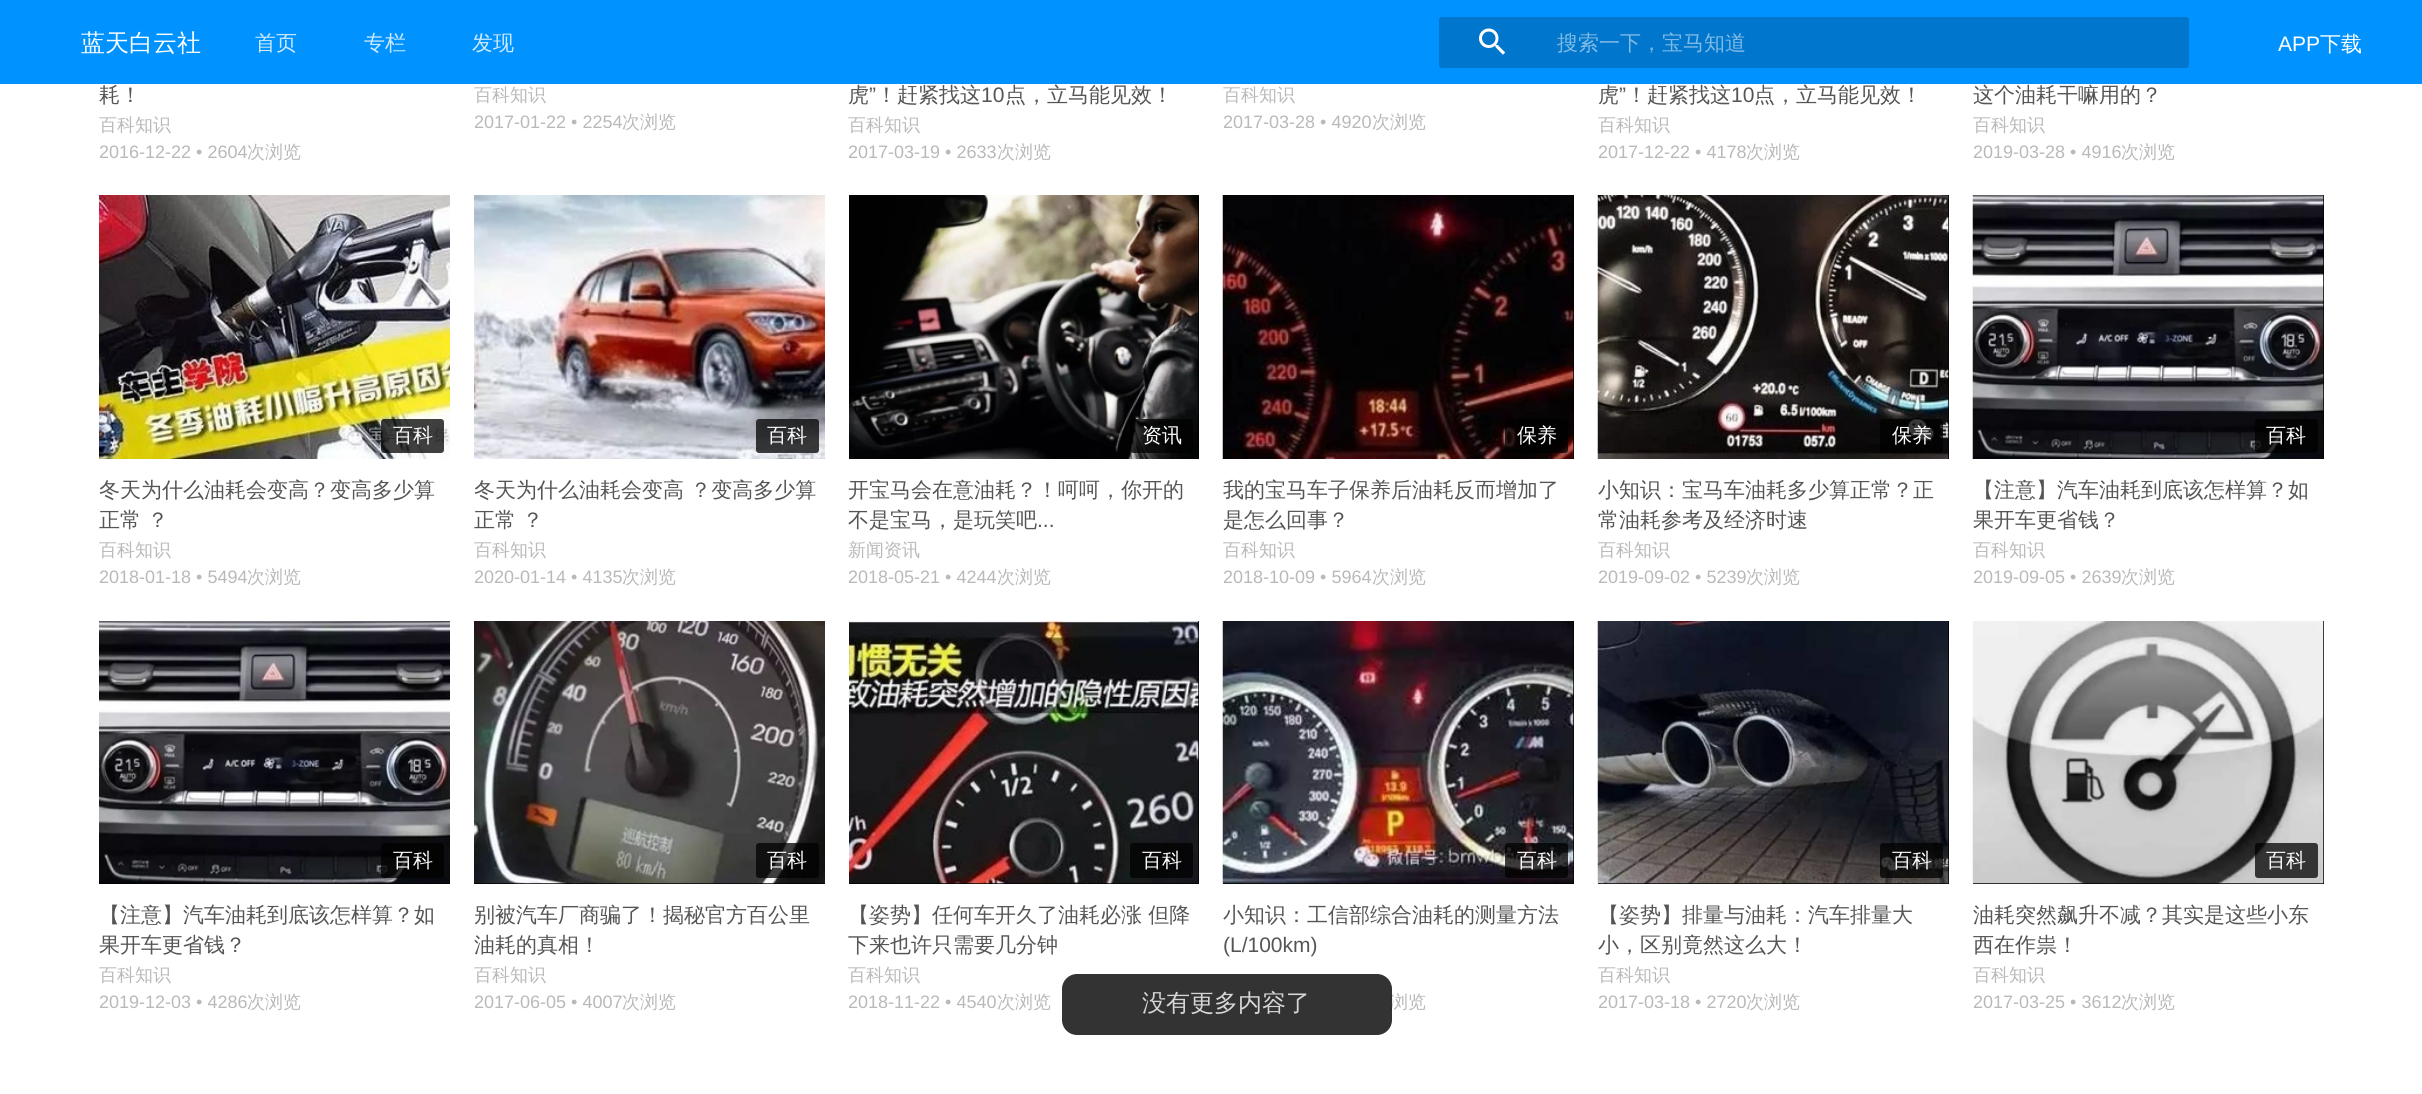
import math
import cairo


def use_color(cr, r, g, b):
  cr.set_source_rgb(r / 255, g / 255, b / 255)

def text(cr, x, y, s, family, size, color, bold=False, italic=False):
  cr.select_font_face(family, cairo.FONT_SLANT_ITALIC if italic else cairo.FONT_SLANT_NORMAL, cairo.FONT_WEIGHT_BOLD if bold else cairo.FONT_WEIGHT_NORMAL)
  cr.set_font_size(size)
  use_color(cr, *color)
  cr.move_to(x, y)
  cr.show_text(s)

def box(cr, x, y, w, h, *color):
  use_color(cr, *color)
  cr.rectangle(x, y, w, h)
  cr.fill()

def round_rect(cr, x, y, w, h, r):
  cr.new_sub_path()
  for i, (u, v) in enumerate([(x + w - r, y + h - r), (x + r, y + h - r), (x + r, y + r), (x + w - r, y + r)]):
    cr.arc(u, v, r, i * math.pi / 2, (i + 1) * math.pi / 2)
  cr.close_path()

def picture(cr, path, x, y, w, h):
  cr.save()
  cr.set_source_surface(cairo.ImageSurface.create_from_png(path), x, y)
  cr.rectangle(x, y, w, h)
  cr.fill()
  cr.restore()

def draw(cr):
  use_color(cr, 255, 255, 255)
  cr.paint()
  box(cr, 0, 0, 2422, 84, 0, 147, 255)
  use_color(cr, 0, 118, 204)
  round_rect(cr, 1439, 17, 750, 51, 3)
  cr.fill()
  picture(cr, "img_01.png", 1479, 28, 27, 27)
  picture(cr, "img_02.png", 99, 195, 351, 264)
  cr.set_source_rgba(0, 0, 0, 0.75)
  round_rect(cr, 381, 419, 63, 34, 3)
  cr.fill()
  picture(cr, "img_03.png", 474, 195, 351, 264)
  round_rect(cr, 756, 419, 63, 34, 3)
  cr.fill()
  box(cr, 1198, 195, 1, 264, 0, 0, 0)
  picture(cr, "img_04.png", 849, 195, 350, 264)
  cr.set_source_rgba(0, 0, 0, 0.75)
  round_rect(cr, 1130, 419, 63, 34, 3)
  cr.fill()
  box(cr, 1573, 195, 1, 264, 0, 0, 0)
  picture(cr, "img_05.png", 1222, 195, 352, 264)
  cr.set_source_rgba(0, 0, 0, 0.75)
  round_rect(cr, 1505, 419, 63, 34, 3)
  cr.fill()
  box(cr, 1948, 195, 1, 264, 0, 0, 0)
  picture(cr, "img_06.png", 1597, 195, 352, 264)
  cr.set_source_rgba(0, 0, 0, 0.75)
  round_rect(cr, 1880, 419, 63, 34, 3)
  cr.fill()
  box(cr, 2323, 195, 1, 264, 0, 0, 0)
  picture(cr, "img_07.png", 1972, 195, 352, 264)
  cr.set_source_rgba(0, 0, 0, 0.75)
  round_rect(cr, 2255, 419, 63, 34, 3)
  cr.fill()
  box(cr, 99, 883, 351, 1, 0, 0, 0)
  picture(cr, "img_08.png", 99, 621, 351, 263)
  cr.set_source_rgba(0, 0, 0, 0.75)
  round_rect(cr, 381, 843, 63, 35, 3)
  cr.fill()
  box(cr, 474, 883, 351, 1, 0, 0, 0)
  picture(cr, "img_09.png", 474, 621, 351, 263)
  cr.set_source_rgba(0, 0, 0, 0.75)
  round_rect(cr, 756, 843, 63, 35, 3)
  cr.fill()
  box(cr, 849, 621, 350, 263, 0, 0, 0)
  picture(cr, "img_10.png", 849, 621, 350, 263)
  cr.set_source_rgba(0, 0, 0, 0.75)
  round_rect(cr, 1130, 843, 63, 35, 3)
  cr.fill()
  box(cr, 1223, 621, 351, 263, 0, 0, 0)
  picture(cr, "img_11.png", 1222, 621, 352, 263)
  cr.set_source_rgba(0, 0, 0, 0.75)
  round_rect(cr, 1505, 843, 63, 35, 3)
  cr.fill()
  box(cr, 1598, 621, 351, 263, 0, 0, 0)
  picture(cr, "img_12.png", 1597, 621, 352, 263)
  cr.set_source_rgba(0, 0, 0, 0.75)
  round_rect(cr, 1880, 843, 63, 35, 3)
  cr.fill()
  box(cr, 1973, 621, 351, 263, 0, 0, 0)
  picture(cr, "img_13.png", 1972, 621, 352, 263)
  cr.set_source_rgba(0, 0, 0, 0.75)
  round_rect(cr, 2255, 843, 63, 35, 3)
  cr.fill()
  text(cr, 81, 51, "蓝天白云社", "WenQuanYi Zen Hei Medium", 24, (255, 255, 255))
  text(cr, 255, 50, "首页", "WenQuanYi Zen Hei Medium", 21, (204, 233, 255))
  text(cr, 364, 50, "专栏", "WenQuanYi Zen Hei Medium", 21, (204, 233, 255))
  text(cr, 472, 50, "发现", "WenQuanYi Zen Hei Medium", 21, (204, 233, 255))
  text(cr, 1557, 50, "搜索一下，宝马知道", "WenQuanYi Zen Hei Medium", 21, (128, 187, 230))
  text(cr, 2278, 51, "APP", "Liberation Sans", 21, (255, 255, 255))
  text(cr, 2320, 51, "下载", "WenQuanYi Zen Hei Medium", 21, (255, 255, 255))
  text(cr, 99, 102, "耗！", "WenQuanYi Zen Hei Medium", 21, (85, 85, 85))
  text(cr, 99, 131, "百科知识", "WenQuanYi Zen Hei Medium", 18, (185, 185, 185))
  text(cr, 99, 158, "2016-12-22 • 2604", "Liberation Sans", 18, (185, 185, 185))
  text(cr, 247, 158, "次浏览", "WenQuanYi Zen Hei Medium", 18, (185, 185, 185))
  text(cr, 474, 101, "百科知识", "WenQuanYi Zen Hei Medium", 18, (185, 185, 185))
  text(cr, 474, 128, "2017-01-22 • 2254", "Liberation Sans", 18, (185, 185, 185))
  text(cr, 622, 128, "次浏览", "WenQuanYi Zen Hei Medium", 18, (185, 185, 185))
  text(cr, 848, 102, "虎", "WenQuanYi Zen Hei Medium", 21, (85, 85, 85))
  text(cr, 869, 102, "”", "Liberation Sans", 21, (85, 85, 85))
  text(cr, 876, 102, "！赶紧找这", "WenQuanYi Zen Hei Medium", 21, (85, 85, 85))
  text(cr, 981, 102, "10", "Liberation Sans", 21, (85, 85, 85))
  text(cr, 1005, 102, "点，立马能见效！", "WenQuanYi Zen Hei Medium", 21, (85, 85, 85))
  text(cr, 848, 131, "百科知识", "WenQuanYi Zen Hei Medium", 18, (185, 185, 185))
  text(cr, 848, 158, "2017-03-19 • 2633", "Liberation Sans", 18, (185, 185, 185))
  text(cr, 997, 158, "次浏览", "WenQuanYi Zen Hei Medium", 18, (185, 185, 185))
  text(cr, 1223, 101, "百科知识", "WenQuanYi Zen Hei Medium", 18, (185, 185, 185))
  text(cr, 1223, 128, "2017-03-28 • 4920", "Liberation Sans", 18, (185, 185, 185))
  text(cr, 1372, 128, "次浏览", "WenQuanYi Zen Hei Medium", 18, (185, 185, 185))
  text(cr, 1598, 102, "虎", "WenQuanYi Zen Hei Medium", 21, (85, 85, 85))
  text(cr, 1619, 102, "”", "Liberation Sans", 21, (85, 85, 85))
  text(cr, 1626, 102, "！赶紧找这", "WenQuanYi Zen Hei Medium", 21, (85, 85, 85))
  text(cr, 1731, 102, "10", "Liberation Sans", 21, (85, 85, 85))
  text(cr, 1754, 102, "点，立马能见效！", "WenQuanYi Zen Hei Medium", 21, (85, 85, 85))
  text(cr, 1598, 131, "百科知识", "WenQuanYi Zen Hei Medium", 18, (185, 185, 185))
  text(cr, 1598, 158, "2017-12-22 • 4178", "Liberation Sans", 18, (185, 185, 185))
  text(cr, 1746, 158, "次浏览", "WenQuanYi Zen Hei Medium", 18, (185, 185, 185))
  text(cr, 1973, 102, "这个油耗干嘛用的？", "WenQuanYi Zen Hei Medium", 21, (85, 85, 85))
  text(cr, 1973, 131, "百科知识", "WenQuanYi Zen Hei Medium", 18, (185, 185, 185))
  text(cr, 1973, 158, "2019-03-28 • 4916", "Liberation Sans", 18, (185, 185, 185))
  text(cr, 2121, 158, "次浏览", "WenQuanYi Zen Hei Medium", 18, (185, 185, 185))
  text(cr, 393, 442, "百科", "WenQuanYi Zen Hei Medium", 20, (255, 255, 255))
  text(cr, 99, 497, "冬天为什么油耗会变高？变高多少算", "WenQuanYi Zen Hei Medium", 21, (85, 85, 85))
  text(cr, 99, 527, "正常 ？", "WenQuanYi Zen Hei Medium", 21, (85, 85, 85))
  text(cr, 99, 556, "百科知识", "WenQuanYi Zen Hei Medium", 18, (185, 185, 185))
  text(cr, 99, 583, "2018-01-18 • 5494", "Liberation Sans", 18, (185, 185, 185))
  text(cr, 247, 583, "次浏览", "WenQuanYi Zen Hei Medium", 18, (185, 185, 185))
  text(cr, 767, 442, "百科", "WenQuanYi Zen Hei Medium", 20, (255, 255, 255))
  text(cr, 474, 497, "冬天为什么油耗会变高 ？变高多少算", "WenQuanYi Zen Hei Medium", 21, (85, 85, 85))
  text(cr, 474, 527, "正常 ？", "WenQuanYi Zen Hei Medium", 21, (85, 85, 85))
  text(cr, 474, 556, "百科知识", "WenQuanYi Zen Hei Medium", 18, (185, 185, 185))
  text(cr, 474, 583, "2020-01-14 • 4135", "Liberation Sans", 18, (185, 185, 185))
  text(cr, 622, 583, "次浏览", "WenQuanYi Zen Hei Medium", 18, (185, 185, 185))
  text(cr, 1142, 442, "资讯", "WenQuanYi Zen Hei Medium", 20, (255, 255, 255))
  text(cr, 848, 497, "开宝马会在意油耗？！呵呵，你开的", "WenQuanYi Zen Hei Medium", 21, (85, 85, 85))
  text(cr, 848, 527, "不是宝马，是玩笑吧", "WenQuanYi Zen Hei Medium", 21, (85, 85, 85))
  text(cr, 1037, 527, "...", "Liberation Sans", 21, (85, 85, 85))
  text(cr, 848, 556, "新闻资讯", "WenQuanYi Zen Hei Medium", 18, (185, 185, 185))
  text(cr, 848, 583, "2018-05-21 • 4244", "Liberation Sans", 18, (185, 185, 185))
  text(cr, 997, 583, "次浏览", "WenQuanYi Zen Hei Medium", 18, (185, 185, 185))
  text(cr, 1517, 442, "保养", "WenQuanYi Zen Hei Medium", 20, (255, 255, 255))
  text(cr, 1223, 497, "我的宝马车子保养后油耗反而增加了", "WenQuanYi Zen Hei Medium", 21, (85, 85, 85))
  text(cr, 1223, 527, "是怎么回事？", "WenQuanYi Zen Hei Medium", 21, (85, 85, 85))
  text(cr, 1223, 556, "百科知识", "WenQuanYi Zen Hei Medium", 18, (185, 185, 185))
  text(cr, 1223, 583, "2018-10-09 • 5964", "Liberation Sans", 18, (185, 185, 185))
  text(cr, 1372, 583, "次浏览", "WenQuanYi Zen Hei Medium", 18, (185, 185, 185))
  text(cr, 1892, 442, "保养", "WenQuanYi Zen Hei Medium", 20, (255, 255, 255))
  text(cr, 1598, 497, "小知识：宝马车油耗多少算正常？正", "WenQuanYi Zen Hei Medium", 21, (85, 85, 85))
  text(cr, 1598, 527, "常油耗参考及经济时速", "WenQuanYi Zen Hei Medium", 21, (85, 85, 85))
  text(cr, 1598, 556, "百科知识", "WenQuanYi Zen Hei Medium", 18, (185, 185, 185))
  text(cr, 1598, 583, "2019-09-02 • 5239", "Liberation Sans", 18, (185, 185, 185))
  text(cr, 1746, 583, "次浏览", "WenQuanYi Zen Hei Medium", 18, (185, 185, 185))
  text(cr, 2266, 442, "百科", "WenQuanYi Zen Hei Medium", 20, (255, 255, 255))
  text(cr, 1973, 497, "【注意】汽车油耗到底该怎样算？如", "WenQuanYi Zen Hei Medium", 21, (85, 85, 85))
  text(cr, 1973, 527, "果开车更省钱？", "WenQuanYi Zen Hei Medium", 21, (85, 85, 85))
  text(cr, 1973, 556, "百科知识", "WenQuanYi Zen Hei Medium", 18, (185, 185, 185))
  text(cr, 1973, 583, "2019-09-05 • 2639", "Liberation Sans", 18, (185, 185, 185))
  text(cr, 2121, 583, "次浏览", "WenQuanYi Zen Hei Medium", 18, (185, 185, 185))
  text(cr, 393, 867, "百科", "WenQuanYi Zen Hei Medium", 20, (255, 255, 255))
  text(cr, 99, 922, "【注意】汽车油耗到底该怎样算？如", "WenQuanYi Zen Hei Medium", 21, (85, 85, 85))
  text(cr, 99, 952, "果开车更省钱？", "WenQuanYi Zen Hei Medium", 21, (85, 85, 85))
  text(cr, 99, 981, "百科知识", "WenQuanYi Zen Hei Medium", 18, (185, 185, 185))
  text(cr, 99, 1008, "2019-12-03 • 4286", "Liberation Sans", 18, (185, 185, 185))
  text(cr, 247, 1008, "次浏览", "WenQuanYi Zen Hei Medium", 18, (185, 185, 185))
  text(cr, 767, 867, "百科", "WenQuanYi Zen Hei Medium", 20, (255, 255, 255))
  text(cr, 474, 922, "别被汽车厂商骗了！揭秘官方百公里", "WenQuanYi Zen Hei Medium", 21, (85, 85, 85))
  text(cr, 474, 952, "油耗的真相！", "WenQuanYi Zen Hei Medium", 21, (85, 85, 85))
  text(cr, 474, 981, "百科知识", "WenQuanYi Zen Hei Medium", 18, (185, 185, 185))
  text(cr, 474, 1008, "2017-06-05 • 4007", "Liberation Sans", 18, (185, 185, 185))
  text(cr, 622, 1008, "次浏览", "WenQuanYi Zen Hei Medium", 18, (185, 185, 185))
  text(cr, 1142, 867, "百科", "WenQuanYi Zen Hei Medium", 20, (255, 255, 255))
  text(cr, 848, 922, "【姿势】任何车开久了油耗必涨 但降", "WenQuanYi Zen Hei Medium", 21, (85, 85, 85))
  text(cr, 848, 952, "下来也许只需要几分钟", "WenQuanYi Zen Hei Medium", 21, (85, 85, 85))
  text(cr, 848, 981, "百科知识", "WenQuanYi Zen Hei Medium", 18, (185, 185, 185))
  text(cr, 848, 1008, "2018-11-22 • 4540", "Liberation Sans", 18, (185, 185, 185))
  text(cr, 997, 1008, "次浏览", "WenQuanYi Zen Hei Medium", 18, (185, 185, 185))
  text(cr, 1517, 867, "百科", "WenQuanYi Zen Hei Medium", 20, (255, 255, 255))
  text(cr, 1223, 922, "小知识：工信部综合油耗的测量方法", "WenQuanYi Zen Hei Medium", 21, (85, 85, 85))
  text(cr, 1223, 952, "(L/100km)", "Liberation Sans", 21, (85, 85, 85))
  text(cr, 1390, 1008, "浏览", "WenQuanYi Zen Hei Medium", 18, (185, 185, 185))
  text(cr, 1892, 867, "百科", "WenQuanYi Zen Hei Medium", 20, (255, 255, 255))
  text(cr, 1598, 922, "【姿势】排量与油耗：汽车排量大", "WenQuanYi Zen Hei Medium", 21, (85, 85, 85))
  text(cr, 1598, 952, "小，区别竟然这么大！", "WenQuanYi Zen Hei Medium", 21, (85, 85, 85))
  text(cr, 1598, 981, "百科知识", "WenQuanYi Zen Hei Medium", 18, (185, 185, 185))
  text(cr, 1598, 1008, "2017-03-18 • 2720", "Liberation Sans", 18, (185, 185, 185))
  text(cr, 1746, 1008, "次浏览", "WenQuanYi Zen Hei Medium", 18, (185, 185, 185))
  text(cr, 2266, 867, "百科", "WenQuanYi Zen Hei Medium", 20, (255, 255, 255))
  text(cr, 1973, 922, "油耗突然飙升不减？其实是这些小东", "WenQuanYi Zen Hei Medium", 21, (85, 85, 85))
  text(cr, 1973, 952, "西在作祟！", "WenQuanYi Zen Hei Medium", 21, (85, 85, 85))
  text(cr, 1973, 981, "百科知识", "WenQuanYi Zen Hei Medium", 18, (185, 185, 185))
  text(cr, 1973, 1008, "2017-03-25 • 3612", "Liberation Sans", 18, (185, 185, 185))
  text(cr, 2121, 1008, "次浏览", "WenQuanYi Zen Hei Medium", 18, (185, 185, 185))
  cr.set_source_rgba(0, 0, 0, 0.8)
  round_rect(cr, 1062, 974, 330, 61, 15)
  cr.fill()
  text(cr, 1142, 1011, "没有更多内容了", "WenQuanYi Zen Hei Medium", 24, (214, 214, 214))


surface = cairo.ImageSurface(cairo.FORMAT_RGB24, 2422, 1094)
cr = cairo.Context(surface)
options = cairo.FontOptions()
options.set_hint_metrics(cairo.HINT_METRICS_OFF)
options.set_hint_style(cairo.HINT_STYLE_NONE)
cr.set_font_options(options)
cr.set_miter_limit(4)
draw(cr)
surface.write_to_png("out.png")
